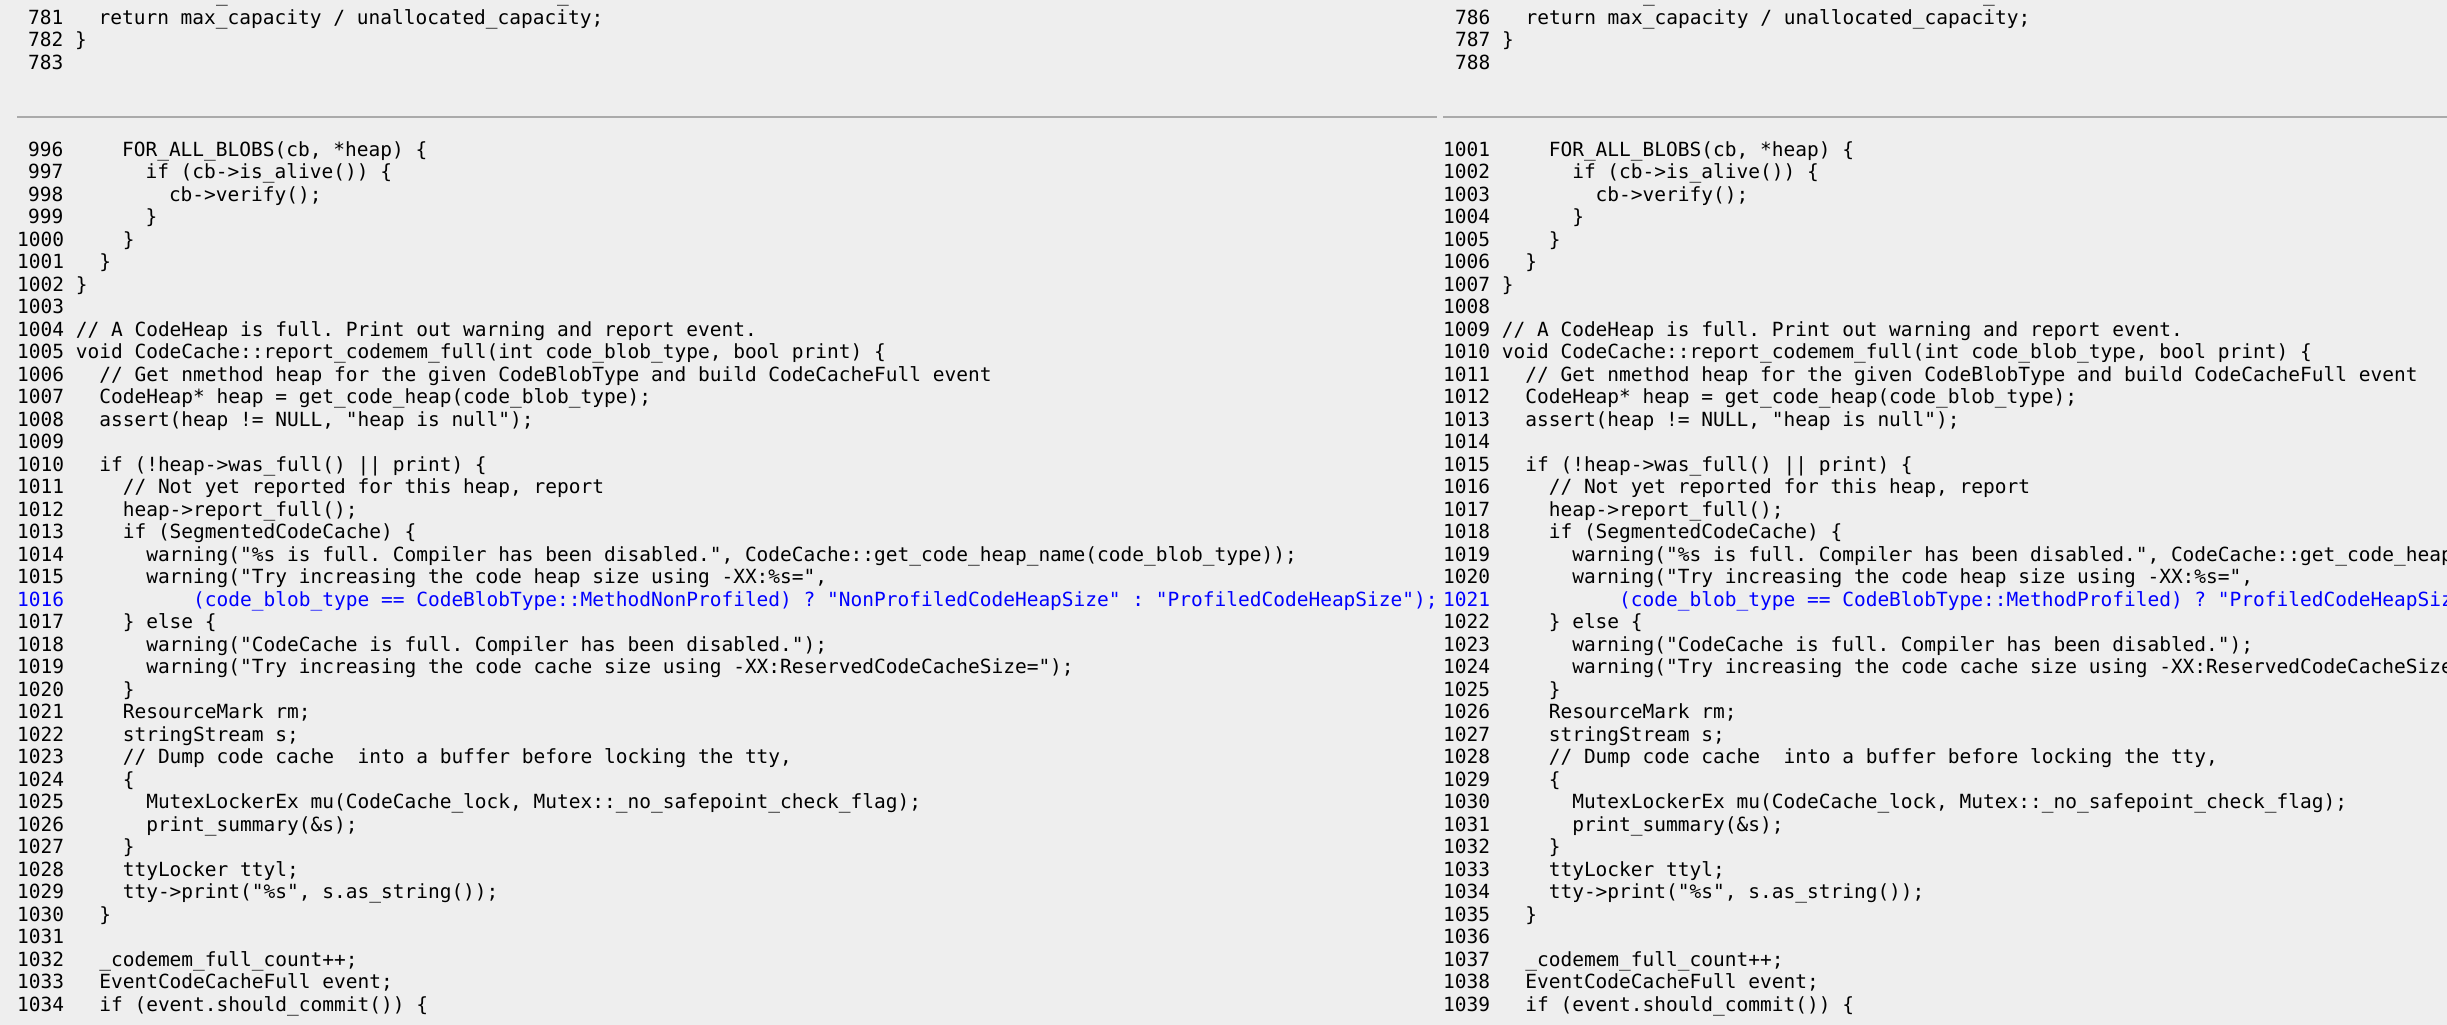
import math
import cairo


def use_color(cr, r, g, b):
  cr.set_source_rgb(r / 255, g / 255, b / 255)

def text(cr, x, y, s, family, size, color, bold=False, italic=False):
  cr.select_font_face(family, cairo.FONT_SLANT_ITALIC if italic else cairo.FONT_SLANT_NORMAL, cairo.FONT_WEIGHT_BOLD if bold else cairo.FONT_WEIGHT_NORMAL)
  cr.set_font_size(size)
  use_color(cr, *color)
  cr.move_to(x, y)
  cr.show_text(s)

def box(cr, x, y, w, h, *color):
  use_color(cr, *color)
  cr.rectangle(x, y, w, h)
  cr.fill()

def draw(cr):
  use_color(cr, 238, 238, 238)
  cr.paint()
  box(cr, 17, 116, 1420, 2, 170, 170, 170)
  box(cr, 1443, 116, 1004, 2, 170, 170, 170)
  text(cr, 216, 1, "_", "DejaVu Sans Mono", 19.5, (0, 0, 0))
  text(cr, 557, 1, "_", "DejaVu Sans Mono", 19.5, (0, 0, 0))
  text(cr, 28, 24, "781   return max_capacity / unallocated_capacity;", "DejaVu Sans Mono", 19.5, (0, 0, 0))
  text(cr, 28, 46, "782 }", "DejaVu Sans Mono", 19.5, (0, 0, 0))
  text(cr, 28, 69, "783", "DejaVu Sans Mono", 19.5, (0, 0, 0))
  text(cr, 28, 156, "996     FOR_ALL_BLOBS(cb, *heap) {", "DejaVu Sans Mono", 19.5, (0, 0, 0))
  text(cr, 28, 178, "997       if (cb->is_alive()) {", "DejaVu Sans Mono", 19.5, (0, 0, 0))
  text(cr, 28, 201, "998         cb->verify();", "DejaVu Sans Mono", 19.5, (0, 0, 0))
  text(cr, 28, 223, "999       }", "DejaVu Sans Mono", 19.5, (0, 0, 0))
  text(cr, 17, 246, "1000     }", "DejaVu Sans Mono", 19.5, (0, 0, 0))
  text(cr, 17, 268, "1001   }", "DejaVu Sans Mono", 19.5, (0, 0, 0))
  text(cr, 17, 291, "1002 }", "DejaVu Sans Mono", 19.5, (0, 0, 0))
  text(cr, 17, 313, "1003", "DejaVu Sans Mono", 19.5, (0, 0, 0))
  text(cr, 17, 336, "1004 // A CodeHeap is full. Print out warning and report event.", "DejaVu Sans Mono", 19.5, (0, 0, 0))
  text(cr, 17, 358, "1005 void CodeCache::report_codemem_full(int code_blob_type, bool print) {", "DejaVu Sans Mono", 19.5, (0, 0, 0))
  text(cr, 17, 381, "1006   // Get nmethod heap for the given CodeBlobType and build CodeCacheFull event", "DejaVu Sans Mono", 19.5, (0, 0, 0))
  text(cr, 17, 403, "1007   CodeHeap* heap = get_code_heap(code_blob_type);", "DejaVu Sans Mono", 19.5, (0, 0, 0))
  text(cr, 17, 426, "1008   assert(heap != NULL, \"heap is null\");", "DejaVu Sans Mono", 19.5, (0, 0, 0))
  text(cr, 17, 448, "1009", "DejaVu Sans Mono", 19.5, (0, 0, 0))
  text(cr, 17, 471, "1010   if (!heap->was_full() || print) {", "DejaVu Sans Mono", 19.5, (0, 0, 0))
  text(cr, 17, 493, "1011     // Not yet reported for this heap, report", "DejaVu Sans Mono", 19.5, (0, 0, 0))
  text(cr, 17, 516, "1012     heap->report_full();", "DejaVu Sans Mono", 19.5, (0, 0, 0))
  text(cr, 17, 538, "1013     if (SegmentedCodeCache) {", "DejaVu Sans Mono", 19.5, (0, 0, 0))
  text(cr, 17, 561, "1014       warning(\"%s is full. Compiler has been disabled.\", CodeCache::get_code_heap_name(code_blob_type));", "DejaVu Sans Mono", 19.5, (0, 0, 0))
  text(cr, 17, 583, "1015       warning(\"Try increasing the code heap size using -XX:%s=\",", "DejaVu Sans Mono", 19.5, (0, 0, 0))
  text(cr, 17, 606, "1016           (code_blob_type == CodeBlobType::MethodNonProfiled) ? \"NonProfiledCodeHeapSize\" : \"ProfiledCodeHeapSize\");", "DejaVu Sans Mono", 19.5, (0, 0, 255))
  text(cr, 17, 628, "1017     } else {", "DejaVu Sans Mono", 19.5, (0, 0, 0))
  text(cr, 17, 651, "1018       warning(\"CodeCache is full. Compiler has been disabled.\");", "DejaVu Sans Mono", 19.5, (0, 0, 0))
  text(cr, 17, 673, "1019       warning(\"Try increasing the code cache size using -XX:ReservedCodeCacheSize=\");", "DejaVu Sans Mono", 19.5, (0, 0, 0))
  text(cr, 17, 696, "1020     }", "DejaVu Sans Mono", 19.5, (0, 0, 0))
  text(cr, 17, 718, "1021     ResourceMark rm;", "DejaVu Sans Mono", 19.5, (0, 0, 0))
  text(cr, 17, 741, "1022     stringStream s;", "DejaVu Sans Mono", 19.5, (0, 0, 0))
  text(cr, 17, 763, "1023     // Dump code cache  into a buffer before locking the tty,", "DejaVu Sans Mono", 19.5, (0, 0, 0))
  text(cr, 17, 786, "1024     {", "DejaVu Sans Mono", 19.5, (0, 0, 0))
  text(cr, 17, 808, "1025       MutexLockerEx mu(CodeCache_lock, Mutex::_no_safepoint_check_flag);", "DejaVu Sans Mono", 19.5, (0, 0, 0))
  text(cr, 17, 831, "1026       print_summary(&s);", "DejaVu Sans Mono", 19.5, (0, 0, 0))
  text(cr, 17, 853, "1027     }", "DejaVu Sans Mono", 19.5, (0, 0, 0))
  text(cr, 17, 876, "1028     ttyLocker ttyl;", "DejaVu Sans Mono", 19.5, (0, 0, 0))
  text(cr, 17, 898, "1029     tty->print(\"%s\", s.as_string());", "DejaVu Sans Mono", 19.5, (0, 0, 0))
  text(cr, 17, 921, "1030   }", "DejaVu Sans Mono", 19.5, (0, 0, 0))
  text(cr, 17, 943, "1031", "DejaVu Sans Mono", 19.5, (0, 0, 0))
  text(cr, 17, 966, "1032   _codemem_full_count++;", "DejaVu Sans Mono", 19.5, (0, 0, 0))
  text(cr, 17, 988, "1033   EventCodeCacheFull event;", "DejaVu Sans Mono", 19.5, (0, 0, 0))
  text(cr, 17, 1011, "1034   if (event.should_commit()) {", "DejaVu Sans Mono", 19.5, (0, 0, 0))
  text(cr, 1643, 1, "_", "DejaVu Sans Mono", 19.5, (0, 0, 0))
  text(cr, 1983, 1, "_", "DejaVu Sans Mono", 19.5, (0, 0, 0))
  text(cr, 1455, 24, "786   return max_capacity / unallocated_capacity;", "DejaVu Sans Mono", 19.5, (0, 0, 0))
  text(cr, 1455, 46, "787 }", "DejaVu Sans Mono", 19.5, (0, 0, 0))
  text(cr, 1455, 69, "788", "DejaVu Sans Mono", 19.5, (0, 0, 0))
  text(cr, 1443, 156, "1001     FOR_ALL_BLOBS(cb, *heap) {", "DejaVu Sans Mono", 19.5, (0, 0, 0))
  text(cr, 1443, 178, "1002       if (cb->is_alive()) {", "DejaVu Sans Mono", 19.5, (0, 0, 0))
  text(cr, 1443, 201, "1003         cb->verify();", "DejaVu Sans Mono", 19.5, (0, 0, 0))
  text(cr, 1443, 223, "1004       }", "DejaVu Sans Mono", 19.5, (0, 0, 0))
  text(cr, 1443, 246, "1005     }", "DejaVu Sans Mono", 19.5, (0, 0, 0))
  text(cr, 1443, 268, "1006   }", "DejaVu Sans Mono", 19.5, (0, 0, 0))
  text(cr, 1443, 291, "1007 }", "DejaVu Sans Mono", 19.5, (0, 0, 0))
  text(cr, 1443, 313, "1008", "DejaVu Sans Mono", 19.5, (0, 0, 0))
  text(cr, 1443, 336, "1009 // A CodeHeap is full. Print out warning and report event.", "DejaVu Sans Mono", 19.5, (0, 0, 0))
  text(cr, 1443, 358, "1010 void CodeCache::report_codemem_full(int code_blob_type, bool print) {", "DejaVu Sans Mono", 19.5, (0, 0, 0))
  text(cr, 1443, 381, "1011   // Get nmethod heap for the given CodeBlobType and build CodeCacheFull event", "DejaVu Sans Mono", 19.5, (0, 0, 0))
  text(cr, 1443, 403, "1012   CodeHeap* heap = get_code_heap(code_blob_type);", "DejaVu Sans Mono", 19.5, (0, 0, 0))
  text(cr, 1443, 426, "1013   assert(heap != NULL, \"heap is null\");", "DejaVu Sans Mono", 19.5, (0, 0, 0))
  text(cr, 1443, 448, "1014", "DejaVu Sans Mono", 19.5, (0, 0, 0))
  text(cr, 1443, 471, "1015   if (!heap->was_full() || print) {", "DejaVu Sans Mono", 19.5, (0, 0, 0))
  text(cr, 1443, 493, "1016     // Not yet reported for this heap, report", "DejaVu Sans Mono", 19.5, (0, 0, 0))
  text(cr, 1443, 516, "1017     heap->report_full();", "DejaVu Sans Mono", 19.5, (0, 0, 0))
  text(cr, 1443, 538, "1018     if (SegmentedCodeCache) {", "DejaVu Sans Mono", 19.5, (0, 0, 0))
  text(cr, 1443, 561, "1019       warning(\"%s is full. Compiler has been disabled.\", CodeCache::get_code_heap", "DejaVu Sans Mono", 19.5, (0, 0, 0))
  text(cr, 1443, 583, "1020       warning(\"Try increasing the code heap size using -XX:%s=\",", "DejaVu Sans Mono", 19.5, (0, 0, 0))
  text(cr, 1443, 606, "1021           (code_blob_type == CodeBlobType::MethodProfiled) ? \"ProfiledCodeHeapSiz", "DejaVu Sans Mono", 19.5, (0, 0, 255))
  text(cr, 1443, 628, "1022     } else {", "DejaVu Sans Mono", 19.5, (0, 0, 0))
  text(cr, 1443, 651, "1023       warning(\"CodeCache is full. Compiler has been disabled.\");", "DejaVu Sans Mono", 19.5, (0, 0, 0))
  text(cr, 1443, 673, "1024       warning(\"Try increasing the code cache size using -XX:ReservedCodeCacheSize", "DejaVu Sans Mono", 19.5, (0, 0, 0))
  text(cr, 1443, 696, "1025     }", "DejaVu Sans Mono", 19.5, (0, 0, 0))
  text(cr, 1443, 718, "1026     ResourceMark rm;", "DejaVu Sans Mono", 19.5, (0, 0, 0))
  text(cr, 1443, 741, "1027     stringStream s;", "DejaVu Sans Mono", 19.5, (0, 0, 0))
  text(cr, 1443, 763, "1028     // Dump code cache  into a buffer before locking the tty,", "DejaVu Sans Mono", 19.5, (0, 0, 0))
  text(cr, 1443, 786, "1029     {", "DejaVu Sans Mono", 19.5, (0, 0, 0))
  text(cr, 1443, 808, "1030       MutexLockerEx mu(CodeCache_lock, Mutex::_no_safepoint_check_flag);", "DejaVu Sans Mono", 19.5, (0, 0, 0))
  text(cr, 1443, 831, "1031       print_summary(&s);", "DejaVu Sans Mono", 19.5, (0, 0, 0))
  text(cr, 1443, 853, "1032     }", "DejaVu Sans Mono", 19.5, (0, 0, 0))
  text(cr, 1443, 876, "1033     ttyLocker ttyl;", "DejaVu Sans Mono", 19.5, (0, 0, 0))
  text(cr, 1443, 898, "1034     tty->print(\"%s\", s.as_string());", "DejaVu Sans Mono", 19.5, (0, 0, 0))
  text(cr, 1443, 921, "1035   }", "DejaVu Sans Mono", 19.5, (0, 0, 0))
  text(cr, 1443, 943, "1036", "DejaVu Sans Mono", 19.5, (0, 0, 0))
  text(cr, 1443, 966, "1037   _codemem_full_count++;", "DejaVu Sans Mono", 19.5, (0, 0, 0))
  text(cr, 1443, 988, "1038   EventCodeCacheFull event;", "DejaVu Sans Mono", 19.5, (0, 0, 0))
  text(cr, 1443, 1011, "1039   if (event.should_commit()) {", "DejaVu Sans Mono", 19.5, (0, 0, 0))


surface = cairo.ImageSurface(cairo.FORMAT_RGB24, 2447, 1025)
cr = cairo.Context(surface)
options = cairo.FontOptions()
options.set_hint_metrics(cairo.HINT_METRICS_OFF)
options.set_hint_style(cairo.HINT_STYLE_NONE)
cr.set_font_options(options)
cr.set_miter_limit(4)
draw(cr)
surface.write_to_png("out.png")
